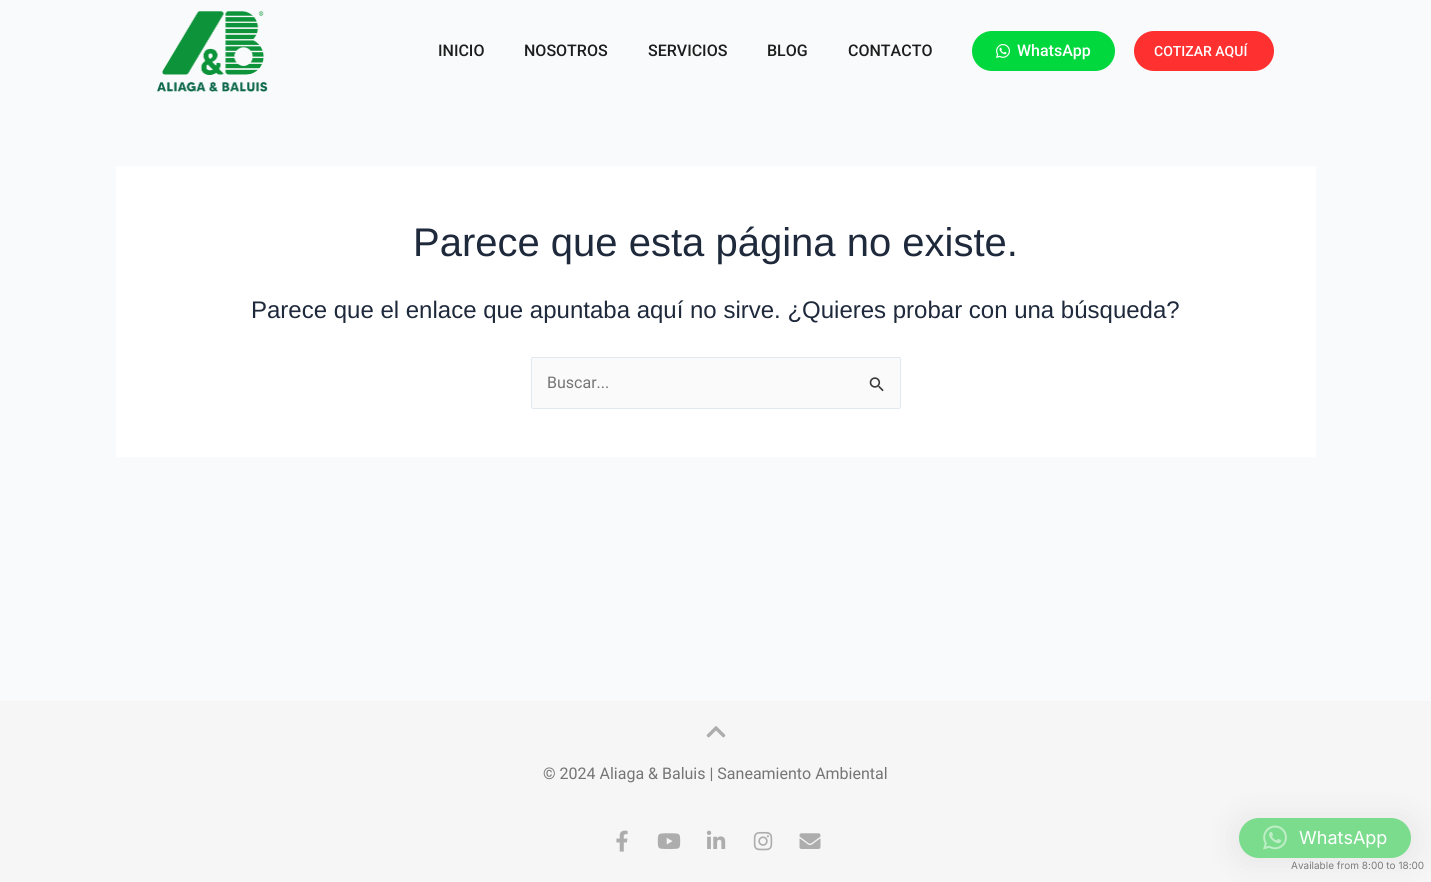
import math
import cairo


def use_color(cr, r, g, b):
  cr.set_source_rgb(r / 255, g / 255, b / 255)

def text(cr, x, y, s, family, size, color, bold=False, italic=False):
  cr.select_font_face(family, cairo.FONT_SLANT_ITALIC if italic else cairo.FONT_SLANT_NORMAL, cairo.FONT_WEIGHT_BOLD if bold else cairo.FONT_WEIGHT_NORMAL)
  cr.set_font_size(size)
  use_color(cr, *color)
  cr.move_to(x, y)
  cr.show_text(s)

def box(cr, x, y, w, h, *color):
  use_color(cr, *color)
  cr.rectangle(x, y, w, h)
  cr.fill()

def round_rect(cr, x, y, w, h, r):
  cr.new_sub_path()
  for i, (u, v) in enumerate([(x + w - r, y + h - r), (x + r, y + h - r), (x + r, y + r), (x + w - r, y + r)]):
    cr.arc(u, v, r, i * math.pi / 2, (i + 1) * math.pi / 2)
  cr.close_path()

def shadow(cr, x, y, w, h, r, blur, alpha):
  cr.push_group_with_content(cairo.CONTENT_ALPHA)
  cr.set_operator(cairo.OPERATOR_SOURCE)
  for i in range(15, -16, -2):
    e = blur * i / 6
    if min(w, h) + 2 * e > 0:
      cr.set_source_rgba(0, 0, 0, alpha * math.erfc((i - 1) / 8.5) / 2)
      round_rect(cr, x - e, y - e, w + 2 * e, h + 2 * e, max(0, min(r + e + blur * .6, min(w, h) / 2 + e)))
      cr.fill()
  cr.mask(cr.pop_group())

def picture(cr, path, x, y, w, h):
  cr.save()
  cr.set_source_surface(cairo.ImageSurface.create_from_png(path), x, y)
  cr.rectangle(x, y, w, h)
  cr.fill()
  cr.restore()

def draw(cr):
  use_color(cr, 249, 250, 251)
  cr.paint()
  picture(cr, "img_01.png", 157, 11, 111, 81)
  use_color(cr, 0, 216, 62)
  round_rect(cr, 972, 31, 143, 40, 20)
  cr.fill()
  picture(cr, "img_02.png", 996, 44, 14, 14)
  use_color(cr, 255, 48, 48)
  round_rect(cr, 1134, 31, 140, 40, 20)
  cr.fill()
  box(cr, 116, 166, 1200, 291, 255, 255, 255)
  use_color(cr, 250, 250, 250)
  round_rect(cr, 531.5, 357.5, 369, 51, 1.5)
  cr.fill_preserve()
  use_color(cr, 226, 232, 240)
  cr.set_line_width(1)
  cr.stroke()
  picture(cr, "img_03.png", 869, 377, 15, 15)
  box(cr, 0, 701, 1431, 181, 246, 246, 246)
  picture(cr, "img_04.png", 706, 726, 20, 12)
  picture(cr, "img_05.png", 616, 830, 12, 22)
  picture(cr, "img_06.png", 657, 833, 24, 16)
  picture(cr, "img_07.png", 706, 830, 20, 19)
  picture(cr, "img_08.png", 753, 831, 20, 20)
  picture(cr, "img_09.png", 799, 833, 22, 16)
  use_color(cr, 123, 123, 123)
  shadow(cr, 1239, 820, 172, 40, 20, 16, 0.16)
  use_color(cr, 123, 220, 141)
  round_rect(cr, 1239, 818, 172, 40, 20)
  cr.fill()
  picture(cr, "img_10.png", 1263, 825, 24, 25)
  text(cr, 438, 56, "INICIO", "Roboto Medium", 16, (29, 29, 29))
  text(cr, 524, 56, "NOSOTROS", "Roboto Medium", 16, (29, 29, 29))
  text(cr, 648, 56, "SERVICIOS", "Roboto Medium", 16, (29, 29, 29))
  text(cr, 767, 56, "BLOG", "Roboto Medium", 16, (29, 29, 29))
  text(cr, 848, 56, "CONTACTO", "Roboto Medium", 16, (29, 29, 29))
  text(cr, 1017, 56, "WhatsApp", "Roboto Medium", 16, (255, 255, 255))
  text(cr, 1154, 56, "COTIZAR AQUÍ", "Roboto Medium", 14, (255, 255, 255))
  text(cr, 413, 256, "Parece que esta página no existe.", "Liberation Sans", 40, (30, 41, 59))
  text(cr, 251, 318, "Parece que el enlace que apuntaba aquí no sirve. ¿Quieres probar con una búsqueda?", "Liberation Sans", 24, (30, 41, 59))
  text(cr, 547, 388, "Buscar...", "Roboto", 16, (117, 117, 117))
  text(cr, 543, 779, "© 2024 Aliaga & Baluis | Saneamiento Ambiental", "Roboto", 16, (117, 117, 117))
  text(cr, 1299, 844, "WhatsApp", "Inter", 18, (255, 255, 255))
  text(cr, 1291, 869, "Available from 8:00 to 18:00", "Inter", 10, (123, 123, 123))


surface = cairo.ImageSurface(cairo.FORMAT_RGB24, 1431, 882)
cr = cairo.Context(surface)
options = cairo.FontOptions()
options.set_hint_metrics(cairo.HINT_METRICS_OFF)
options.set_hint_style(cairo.HINT_STYLE_NONE)
cr.set_font_options(options)
cr.set_miter_limit(4)
draw(cr)
surface.write_to_png("out.png")
